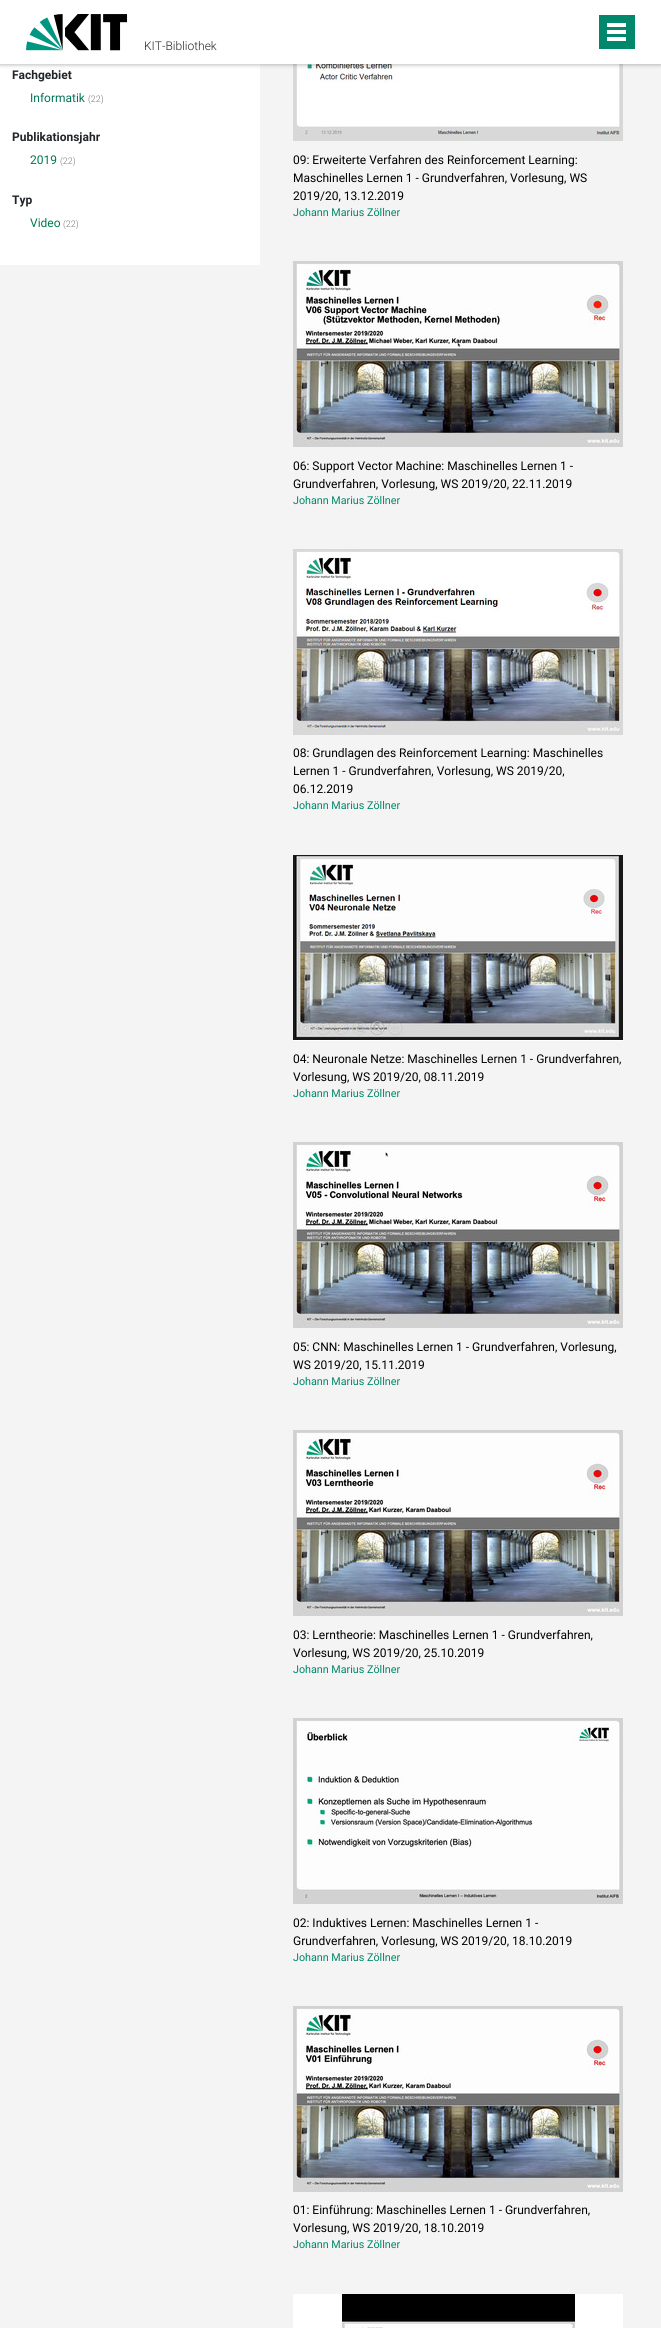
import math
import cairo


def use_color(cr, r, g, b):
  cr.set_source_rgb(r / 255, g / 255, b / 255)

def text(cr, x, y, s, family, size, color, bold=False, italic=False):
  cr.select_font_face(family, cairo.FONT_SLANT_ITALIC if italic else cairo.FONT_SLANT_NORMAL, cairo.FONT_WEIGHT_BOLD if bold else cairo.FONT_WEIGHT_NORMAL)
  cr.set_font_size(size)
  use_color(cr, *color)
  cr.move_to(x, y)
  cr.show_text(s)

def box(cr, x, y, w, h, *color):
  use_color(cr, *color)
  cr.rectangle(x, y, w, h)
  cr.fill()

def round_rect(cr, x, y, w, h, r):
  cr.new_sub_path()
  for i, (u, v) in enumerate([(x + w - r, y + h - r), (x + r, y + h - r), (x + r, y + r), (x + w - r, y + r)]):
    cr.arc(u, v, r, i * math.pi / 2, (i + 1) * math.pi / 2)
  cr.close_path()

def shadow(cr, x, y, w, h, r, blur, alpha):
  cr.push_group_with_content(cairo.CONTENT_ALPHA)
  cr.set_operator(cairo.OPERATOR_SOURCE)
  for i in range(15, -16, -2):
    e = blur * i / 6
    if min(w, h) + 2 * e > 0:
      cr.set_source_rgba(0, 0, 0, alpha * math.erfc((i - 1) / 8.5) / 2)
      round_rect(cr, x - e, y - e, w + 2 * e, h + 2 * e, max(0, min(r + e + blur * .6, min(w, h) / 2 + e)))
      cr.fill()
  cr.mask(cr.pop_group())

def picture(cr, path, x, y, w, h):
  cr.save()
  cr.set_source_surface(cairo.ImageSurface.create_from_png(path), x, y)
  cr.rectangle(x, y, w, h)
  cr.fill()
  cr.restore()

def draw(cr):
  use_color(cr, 244, 244, 244)
  cr.paint()
  box(cr, 0, 64, 260, 201, 255, 255, 255)
  picture(cr, "img_02.png", 293, 64, 330, 77)
  use_color(cr, 64, 64, 64)
  shadow(cr, 0, 0, 661, 64, 0, 2.5, 0.5)
  box(cr, 0, 0, 661, 64, 255, 255, 255)
  picture(cr, "img_01.png", 26, 14, 102, 37)
  box(cr, 599, 15, 36, 34, 0, 135, 108)
  box(cr, 607, 37, 19, 4, 255, 255, 255)
  box(cr, 607, 30, 19, 4, 255, 255, 255)
  box(cr, 607, 23, 19, 4, 255, 255, 255)
  picture(cr, "img_03.png", 293, 261, 330, 186)
  picture(cr, "img_04.png", 293, 549, 330, 186)
  box(cr, 293, 1040, 330, 1, 255, 255, 255)
  picture(cr, "img_05.png", 293, 855, 330, 185)
  picture(cr, "img_06.png", 293, 1142, 330, 186)
  picture(cr, "img_07.png", 293, 1430, 330, 186)
  picture(cr, "img_08.png", 293, 1718, 330, 186)
  picture(cr, "img_09.png", 293, 2006, 330, 186)
  box(cr, 293, 2294, 330, 34, 255, 255, 255)
  picture(cr, "img_10.png", 342, 2294, 233, 34)
  text(cr, 144, 50, "KIT-Bibliothek", "Roboto Light", 12, (33, 37, 41))
  text(cr, 12, 79, "Fachgebiet", "Roboto", 12, (33, 37, 41), bold=True)
  text(cr, 30, 102, "Informatik", "Roboto", 12, (0, 119, 85))
  text(cr, 88, 102, "(22)", "Roboto Light", 9, (119, 119, 119))
  text(cr, 12, 141, "Publikationsjahr", "Roboto", 12, (33, 37, 41), bold=True)
  text(cr, 30, 164, "2019", "Roboto", 12, (0, 119, 85))
  text(cr, 60, 164, "(22)", "Roboto Light", 9, (119, 119, 119))
  text(cr, 12, 204, "Typ", "Roboto", 12, (33, 37, 41), bold=True)
  text(cr, 30, 227, "Video", "Roboto", 12, (0, 119, 85))
  text(cr, 63, 227, "(22)", "Roboto Light", 9, (119, 119, 119))
  text(cr, 293, 164, "09: Erweiterte Verfahren des Reinforcement Learning:", "Roboto", 12, (0, 0, 0))
  text(cr, 293, 182, "Maschinelles Lernen 1 - Grundverfahren, Vorlesung, WS", "Roboto", 12, (0, 0, 0))
  text(cr, 293, 200, "2019/20, 13.12.2019", "Roboto", 12, (0, 0, 0))
  text(cr, 293, 216, "Johann Marius Zöllner", "Roboto", 10.75, (0, 135, 108))
  text(cr, 293, 470, "06: Support Vector Machine: Maschinelles Lernen 1 -", "Roboto", 12, (0, 0, 0))
  text(cr, 293, 488, "Grundverfahren, Vorlesung, WS 2019/20, 22.11.2019", "Roboto", 12, (0, 0, 0))
  text(cr, 293, 504, "Johann Marius Zöllner", "Roboto", 10.75, (0, 135, 108))
  text(cr, 293, 757, "08: Grundlagen des Reinforcement Learning: Maschinelles", "Roboto", 12, (0, 0, 0))
  text(cr, 293, 775, "Lernen 1 - Grundverfahren, Vorlesung, WS 2019/20,", "Roboto", 12, (0, 0, 0))
  text(cr, 293, 793, "06.12.2019", "Roboto", 12, (0, 0, 0))
  text(cr, 293, 809, "Johann Marius Zöllner", "Roboto", 10.75, (0, 135, 108))
  text(cr, 293, 1063, "04: Neuronale Netze: Maschinelles Lernen 1 - Grundverfahren,", "Roboto", 12, (0, 0, 0))
  text(cr, 293, 1081, "Vorlesung, WS 2019/20, 08.11.2019", "Roboto", 12, (0, 0, 0))
  text(cr, 293, 1097, "Johann Marius Zöllner", "Roboto", 10.75, (0, 135, 108))
  text(cr, 293, 1351, "05: CNN: Maschinelles Lernen 1 - Grundverfahren, Vorlesung,", "Roboto", 12, (0, 0, 0))
  text(cr, 293, 1369, "WS 2019/20, 15.11.2019", "Roboto", 12, (0, 0, 0))
  text(cr, 293, 1385, "Johann Marius Zöllner", "Roboto", 10.75, (0, 135, 108))
  text(cr, 293, 1639, "03: Lerntheorie: Maschinelles Lernen 1 - Grundverfahren,", "Roboto", 12, (0, 0, 0))
  text(cr, 293, 1657, "Vorlesung, WS 2019/20, 25.10.2019", "Roboto", 12, (0, 0, 0))
  text(cr, 293, 1673, "Johann Marius Zöllner", "Roboto", 10.75, (0, 135, 108))
  text(cr, 293, 1927, "02: Induktives Lernen: Maschinelles Lernen 1 -", "Roboto", 12, (0, 0, 0))
  text(cr, 293, 1945, "Grundverfahren, Vorlesung, WS 2019/20, 18.10.2019", "Roboto", 12, (0, 0, 0))
  text(cr, 293, 1961, "Johann Marius Zöllner", "Roboto", 10.75, (0, 135, 108))
  text(cr, 293, 2214, "01: Einführung: Maschinelles Lernen 1 - Grundverfahren,", "Roboto", 12, (0, 0, 0))
  text(cr, 293, 2232, "Vorlesung, WS 2019/20, 18.10.2019", "Roboto", 12, (0, 0, 0))
  text(cr, 293, 2248, "Johann Marius Zöllner", "Roboto", 10.75, (0, 135, 108))


surface = cairo.ImageSurface(cairo.FORMAT_RGB24, 661, 2328)
cr = cairo.Context(surface)
options = cairo.FontOptions()
options.set_hint_metrics(cairo.HINT_METRICS_OFF)
options.set_hint_style(cairo.HINT_STYLE_NONE)
cr.set_font_options(options)
cr.set_miter_limit(4)
draw(cr)
surface.write_to_png("out.png")
